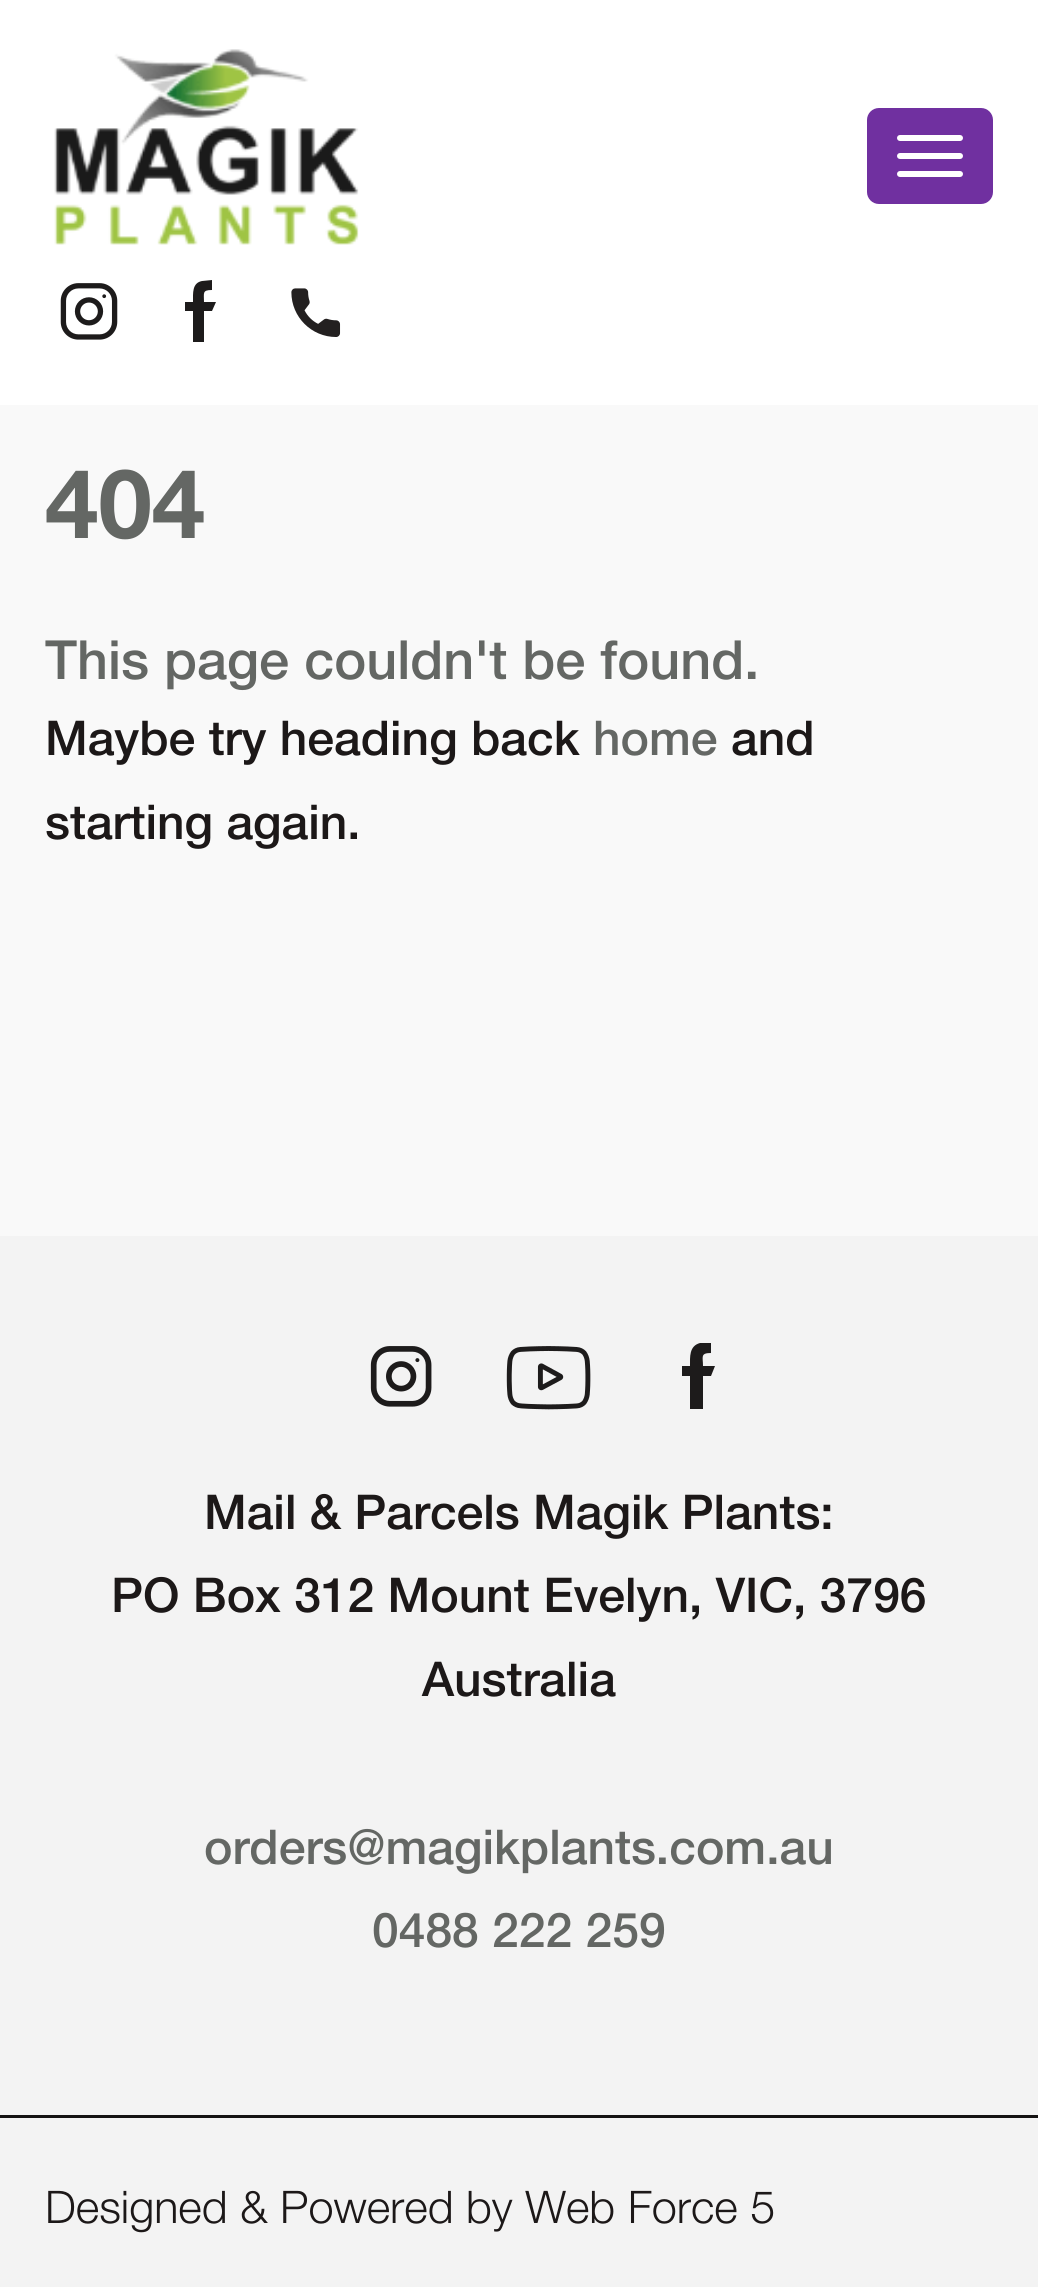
import math
import cairo


def use_color(cr, r, g, b):
  cr.set_source_rgb(r / 255, g / 255, b / 255)

def text(cr, x, y, s, family, size, color, bold=False, italic=False):
  cr.select_font_face(family, cairo.FONT_SLANT_ITALIC if italic else cairo.FONT_SLANT_NORMAL, cairo.FONT_WEIGHT_BOLD if bold else cairo.FONT_WEIGHT_NORMAL)
  cr.set_font_size(size)
  use_color(cr, *color)
  cr.move_to(x, y)
  cr.show_text(s)

def box(cr, x, y, w, h, *color):
  use_color(cr, *color)
  cr.rectangle(x, y, w, h)
  cr.fill()

def round_rect(cr, x, y, w, h, r):
  cr.new_sub_path()
  for i, (u, v) in enumerate([(x + w - r, y + h - r), (x + r, y + h - r), (x + r, y + r), (x + w - r, y + r)]):
    cr.arc(u, v, r, i * math.pi / 2, (i + 1) * math.pi / 2)
  cr.close_path()

def picture(cr, path, x, y, w, h):
  cr.save()
  cr.set_source_surface(cairo.ImageSurface.create_from_png(path), x, y)
  cr.rectangle(x, y, w, h)
  cr.fill()
  cr.restore()

def draw(cr):
  use_color(cr, 249, 249, 249)
  cr.paint()
  box(cr, 0, 0, 1038, 405, 255, 255, 255)
  picture(cr, "img_01.png", 54, 49, 305, 196)
  use_color(cr, 112, 48, 160)
  round_rect(cr, 867, 108, 126, 96, 12)
  cr.fill()
  use_color(cr, 255, 255, 255)
  round_rect(cr, 897, 135, 66, 6, 3)
  cr.fill()
  round_rect(cr, 897, 153, 66, 6, 3)
  cr.fill()
  round_rect(cr, 897, 171, 66, 6, 3)
  cr.fill()
  picture(cr, "img_02.png", 60, 283, 58, 57)
  use_color(cr, 29, 27, 27)
  cr.new_path()
  cr.move_to(204, 302)
  cr.curve_to(204, 293, 202, 290, 212, 290)
  cr.line_to(212, 280)
  cr.line_to(202, 281)
  cr.curve_to(192, 283, 193, 293, 193, 302)
  cr.line_to(185, 302)
  cr.line_to(185, 311)
  cr.line_to(193, 311)
  cr.line_to(193, 342)
  cr.line_to(204, 342)
  cr.line_to(204, 311)
  cr.line_to(212, 311)
  cr.line_to(216, 302)
  cr.close_path()
  cr.fill()
  picture(cr, "img_03.png", 291, 288, 50, 49)
  box(cr, 0, 2115, 1038, 3, 21, 19, 19)
  box(cr, 0, 1236, 1038, 879, 243, 243, 243)
  picture(cr, "img_04.png", 370, 1346, 62, 61)
  picture(cr, "img_05.png", 506, 1346, 85, 64)
  use_color(cr, 29, 27, 27)
  cr.new_path()
  cr.move_to(703, 1366)
  cr.curve_to(703, 1357, 700, 1353, 711, 1353)
  cr.line_to(711, 1343)
  cr.line_to(700, 1343)
  cr.curve_to(689, 1346, 690, 1357, 690, 1366)
  cr.line_to(682, 1366)
  cr.line_to(682, 1376)
  cr.line_to(690, 1376)
  cr.line_to(690, 1409)
  cr.line_to(703, 1409)
  cr.line_to(703, 1376)
  cr.line_to(711, 1376)
  cr.line_to(715, 1366)
  cr.close_path()
  cr.fill()
  box(cr, 0, 2118, 1038, 169, 243, 243, 243)
  text(cr, 45, 538, "404", "Helvetica Neue", 96, (100, 103, 100), bold=True)
  text(cr, 45, 679, "This page couldn't be found.", "Helvetica Neue Medium", 54, (100, 103, 100))
  text(cr, 45, 755, "Maybe try heading back", "Helvetica Neue Medium", 48, (28, 24, 24))
  text(cr, 593, 755, "home", "Helvetica Neue Medium", 48, (100, 103, 100))
  text(cr, 731, 755, "and", "Helvetica Neue Medium", 48, (28, 24, 24))
  text(cr, 45, 839, "starting again.", "Helvetica Neue Medium", 48, (28, 24, 24))
  text(cr, 204, 1529, "Mail & Parcels Magik Plants:", "Helvetica Neue Medium", 48, (28, 24, 24))
  text(cr, 111, 1612, "PO Box 312 Mount Evelyn, VIC, 3796", "Helvetica Neue Medium", 48, (28, 24, 24))
  text(cr, 422, 1696, "Australia", "Helvetica Neue Medium", 48, (28, 24, 24))
  text(cr, 204, 1864, "orders@magikplants.com.au", "Helvetica Neue Medium", 48, (100, 103, 100))
  text(cr, 372, 1947, "0488 222 259", "Helvetica Neue Medium", 48, (100, 103, 100))
  text(cr, 45, 2223, "Designed & Powered by Web Force 5", "Helvetica Neue Light", 45, (28, 24, 24))


surface = cairo.ImageSurface(cairo.FORMAT_RGB24, 1038, 2287)
cr = cairo.Context(surface)
options = cairo.FontOptions()
options.set_hint_metrics(cairo.HINT_METRICS_OFF)
options.set_hint_style(cairo.HINT_STYLE_NONE)
cr.set_font_options(options)
cr.set_miter_limit(4)
draw(cr)
surface.write_to_png("out.png")
